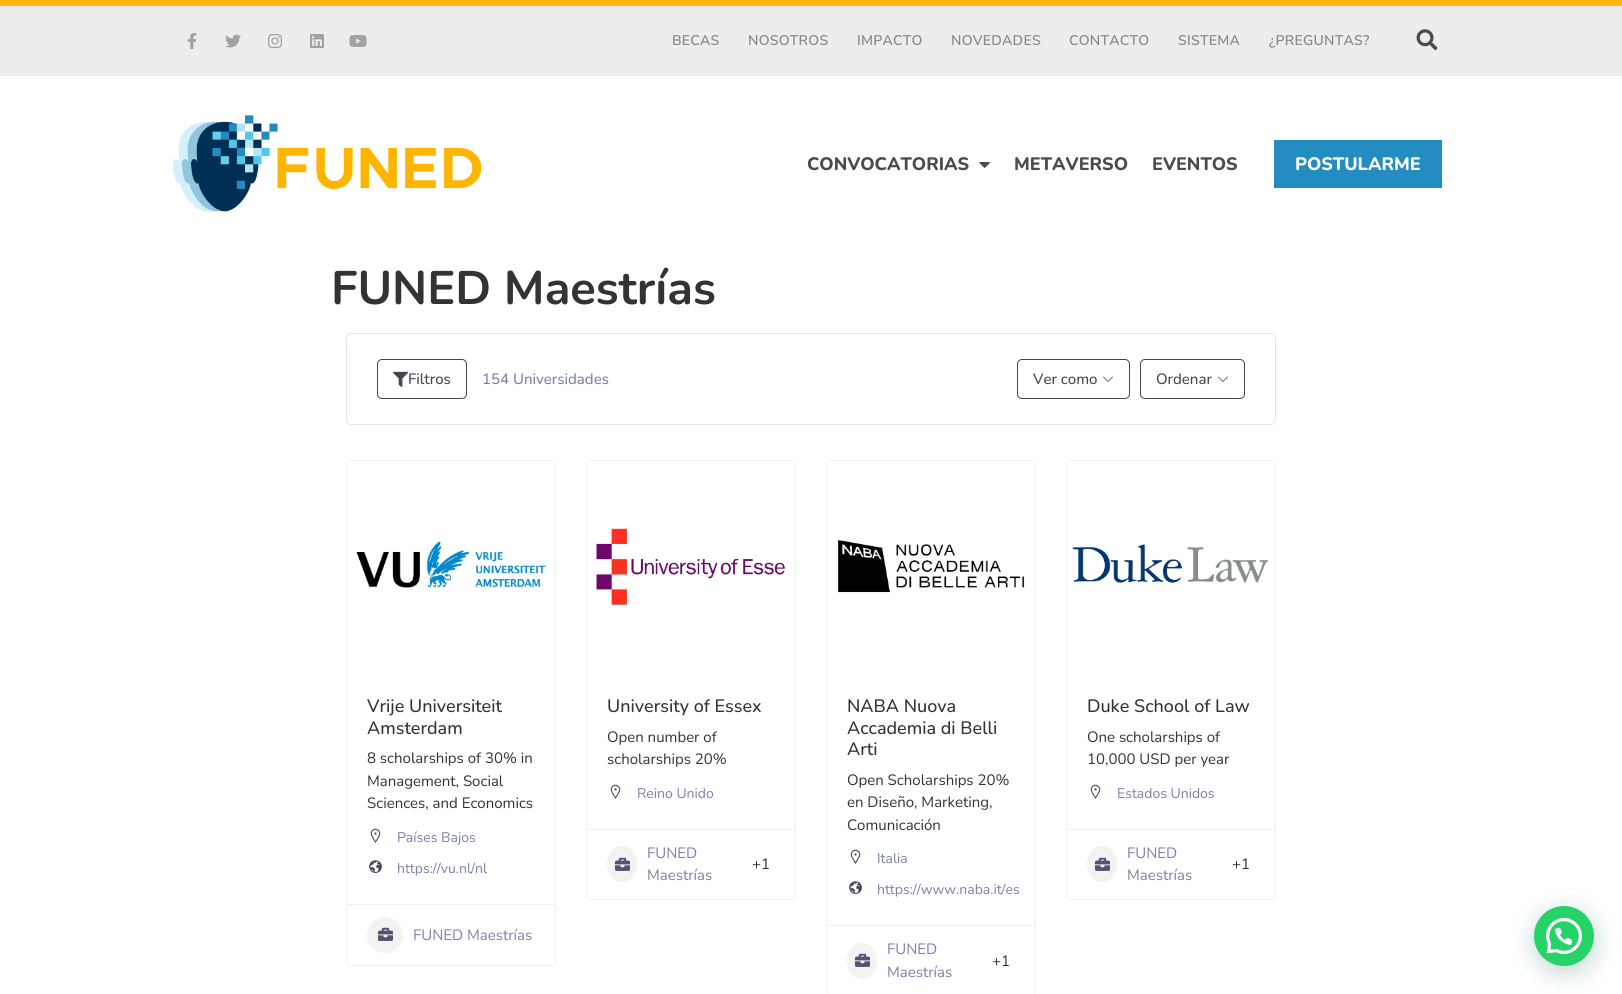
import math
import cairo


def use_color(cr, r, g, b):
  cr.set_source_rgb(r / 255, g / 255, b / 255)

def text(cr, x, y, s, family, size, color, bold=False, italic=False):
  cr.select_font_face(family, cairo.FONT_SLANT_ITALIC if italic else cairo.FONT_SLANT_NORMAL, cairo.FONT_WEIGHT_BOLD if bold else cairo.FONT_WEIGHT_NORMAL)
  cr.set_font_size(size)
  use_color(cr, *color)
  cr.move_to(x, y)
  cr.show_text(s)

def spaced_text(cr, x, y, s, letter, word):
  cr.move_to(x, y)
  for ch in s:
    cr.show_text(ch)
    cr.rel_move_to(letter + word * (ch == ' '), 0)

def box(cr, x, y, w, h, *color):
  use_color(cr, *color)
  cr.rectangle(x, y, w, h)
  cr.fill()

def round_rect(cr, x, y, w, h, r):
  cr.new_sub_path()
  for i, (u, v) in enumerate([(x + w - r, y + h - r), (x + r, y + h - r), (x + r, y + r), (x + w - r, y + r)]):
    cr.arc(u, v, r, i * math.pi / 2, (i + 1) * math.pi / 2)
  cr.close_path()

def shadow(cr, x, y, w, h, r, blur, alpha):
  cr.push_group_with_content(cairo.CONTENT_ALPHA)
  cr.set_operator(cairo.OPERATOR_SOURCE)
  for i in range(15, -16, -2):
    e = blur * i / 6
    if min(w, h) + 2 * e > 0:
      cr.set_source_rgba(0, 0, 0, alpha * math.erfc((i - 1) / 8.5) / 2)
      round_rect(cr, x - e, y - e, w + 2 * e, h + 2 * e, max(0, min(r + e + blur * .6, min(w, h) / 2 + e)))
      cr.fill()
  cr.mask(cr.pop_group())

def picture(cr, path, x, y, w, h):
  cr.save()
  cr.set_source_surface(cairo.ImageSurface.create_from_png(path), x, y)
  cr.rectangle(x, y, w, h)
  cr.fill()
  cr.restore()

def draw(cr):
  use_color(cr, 255, 255, 255)
  cr.paint()
  box(cr, 0, 6, 1622, 70, 237, 237, 237)
  box(cr, 0, 0, 1622, 6, 253, 183, 20)
  picture(cr, "img_01.png", 187, 33, 10, 16)
  picture(cr, "img_02.png", 225, 34, 16, 14)
  picture(cr, "img_03.png", 268, 34, 14, 14)
  picture(cr, "img_04.png", 310, 34, 14, 14)
  picture(cr, "img_05.png", 349, 35, 18, 12)
  picture(cr, "img_06.png", 1416, 29, 22, 22)
  picture(cr, "img_07.png", 173, 115, 309, 97)
  picture(cr, "img_08.png", 979, 162, 11, 6)
  box(cr, 1274, 140, 168, 48, 35, 141, 193)
  round_rect(cr, 346.5, 333.5, 929, 91, 4.5)
  use_color(cr, 227, 230, 239)
  cr.set_line_width(1)
  cr.stroke()
  round_rect(cr, 377.5, 359.5, 89, 39, 4.5)
  use_color(cr, 68, 71, 82)
  cr.stroke()
  picture(cr, "img_09.png", 393, 371, 15, 16)
  round_rect(cr, 1017.5, 359.5, 112, 39, 4.5)
  cr.stroke()
  picture(cr, "img_10.png", 1103, 376, 10, 6)
  round_rect(cr, 1140.5, 359.5, 104, 39, 4.5)
  cr.stroke()
  picture(cr, "img_10.png", 1218, 376, 10, 6)
  round_rect(cr, 346.5, 460.5, 209, 505, 3.5)
  use_color(cr, 239, 241, 246)
  cr.stroke()
  box(cr, 347, 461, 208, 2, 255, 255, 255)
  picture(cr, "img_11.png", 356, 541, 191, 47)
  picture(cr, "img_12.png", 370, 828, 11, 15)
  picture(cr, "img_13.png", 369, 860, 13, 13)
  box(cr, 347, 904, 208, 1, 239, 241, 246)
  use_color(cr, 243, 243, 243)
  cr.arc(385, 935, 18, 0, 2 * math.pi)
  cr.fill()
  picture(cr, "img_14.png", 378, 927, 15, 14)
  round_rect(cr, 586.5, 460.5, 209, 439, 3.5)
  use_color(cr, 239, 241, 246)
  cr.stroke()
  box(cr, 587, 461, 208, 2, 255, 255, 255)
  picture(cr, "img_15.png", 596, 528, 189, 78)
  picture(cr, "img_12.png", 610, 784, 11, 15)
  box(cr, 587, 829, 208, 1, 239, 241, 246)
  use_color(cr, 243, 243, 243)
  cr.new_path()
  cr.move_to(622, 846)
  cr.curve_to(630.5, 846, 637, 854, 637, 864)
  cr.curve_to(637, 874, 630.5, 882, 622, 882)
  cr.curve_to(613.5, 882, 607, 874, 607, 864)
  cr.curve_to(607, 854, 613.5, 846, 622, 846)
  cr.close_path()
  cr.fill()
  picture(cr, "img_14.png", 615, 857, 15, 14)
  round_rect(cr, 826.5, 460.5, 209, 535, 3.5)
  use_color(cr, 239, 241, 246)
  cr.stroke()
  box(cr, 827, 461, 208, 2, 255, 255, 255)
  picture(cr, "img_16.png", 838, 539, 187, 54)
  picture(cr, "img_12.png", 850, 849, 11, 15)
  picture(cr, "img_13.png", 849, 881, 13, 13)
  box(cr, 827, 925, 208, 1, 239, 241, 246)
  use_color(cr, 243, 243, 243)
  cr.new_path()
  cr.move_to(862, 943)
  cr.curve_to(870.5, 943, 877, 951, 877, 961)
  cr.curve_to(877, 971, 870.5, 979, 862, 979)
  cr.curve_to(853.5, 979, 847, 971, 847, 961)
  cr.curve_to(847, 951, 853.5, 943, 862, 943)
  cr.close_path()
  cr.fill()
  picture(cr, "img_14.png", 855, 953, 15, 14)
  round_rect(cr, 1066.5, 460.5, 209, 439, 3.5)
  use_color(cr, 239, 241, 246)
  cr.stroke()
  box(cr, 1067, 461, 208, 2, 255, 255, 255)
  picture(cr, "img_17.png", 1072, 544, 197, 39)
  picture(cr, "img_12.png", 1090, 784, 11, 15)
  box(cr, 1067, 829, 208, 1, 239, 241, 246)
  use_color(cr, 243, 243, 243)
  cr.new_path()
  cr.move_to(1102, 846)
  cr.curve_to(1110.5, 846, 1117, 854, 1117, 864)
  cr.curve_to(1117, 874, 1110.5, 882, 1102, 882)
  cr.curve_to(1093.5, 882, 1087, 874, 1087, 864)
  cr.curve_to(1087, 854, 1093.5, 846, 1102, 846)
  cr.close_path()
  cr.fill()
  picture(cr, "img_14.png", 1095, 857, 15, 14)
  use_color(cr, 7, 94, 84)
  shadow(cr, 1535, 912, 60, 60, 30, 12, 0.24)
  use_color(cr, 37, 211, 102)
  cr.arc(1564, 936, 30, 0, 2 * math.pi)
  cr.fill()
  picture(cr, "img_18.png", 1546, 918, 36, 36)
  cr.select_font_face("Nunito SemiBold")
  cr.set_font_size(14)
  use_color(cr, 138, 138, 138)
  spaced_text(cr, 672, 45, "BECAS", 0.25, 0)
  spaced_text(cr, 748, 45, "NOSOTROS", 0.25, 0)
  spaced_text(cr, 857, 45, "IMPACTO", 0.25, 0)
  spaced_text(cr, 951, 45, "NOVEDADES", 0.25, 0)
  spaced_text(cr, 1069, 45, "CONTACTO", 0.25, 0)
  spaced_text(cr, 1178, 45, "SISTEMA", 0.25, 0)
  spaced_text(cr, 1269, 45, "¿PREGUNTAS?", 0.25, 0)
  text(cr, 807, 170, "CONVOCATORIAS", "Nunito ExtraBold", 18, (75, 75, 75))
  text(cr, 1014, 170, "METAVERSO", "Nunito ExtraBold", 18, (75, 75, 75))
  text(cr, 1152, 170, "EVENTOS", "Nunito ExtraBold", 18, (75, 75, 75))
  text(cr, 1295, 170, "POSTULARME", "Nunito ExtraBold", 18, (255, 255, 255))
  text(cr, 331, 304, "FUNED Maestrías", "Nunito", 47, (51, 51, 51), bold=True)
  text(cr, 408, 384, "Filtros", "Nunito Medium", 15, (68, 71, 82))
  text(cr, 482, 384, "154 Universidades", "Nunito Medium", 15, (122, 130, 166))
  text(cr, 1033, 384, "Ver como", "Nunito Medium", 15, (68, 71, 82))
  text(cr, 1156, 384, "Ordenar", "Nunito Medium", 15, (68, 71, 82))
  text(cr, 367, 712, "Vrije Universiteit", "Nunito Medium", 18, (51, 51, 51))
  text(cr, 367, 734, "Amsterdam", "Nunito Medium", 18, (51, 51, 51))
  text(cr, 367, 763, "8 scholarships of 30% in", "Nunito", 15, (51, 51, 51))
  text(cr, 367, 786, "Management, Social", "Nunito", 15, (51, 51, 51))
  text(cr, 367, 808, "Sciences, and Economics", "Nunito", 15, (51, 51, 51))
  text(cr, 397, 842, "Países Bajos", "Nunito", 14, (122, 130, 166))
  text(cr, 397, 873, "https://vu.nl/nl", "Nunito", 14, (122, 130, 166))
  text(cr, 413, 940, "FUNED Maestrías", "Nunito", 15, (122, 130, 166))
  text(cr, 607, 712, "University of Essex", "Nunito Medium", 18, (51, 51, 51))
  text(cr, 607, 742, "Open number of", "Nunito", 15, (51, 51, 51))
  text(cr, 607, 764, "scholarships 20%", "Nunito", 15, (51, 51, 51))
  text(cr, 637, 798, "Reino Unido", "Nunito", 14, (122, 130, 166))
  text(cr, 647, 858, "FUNED", "Nunito", 15, (122, 130, 166))
  text(cr, 647, 880, "Maestrías", "Nunito", 15, (122, 130, 166))
  text(cr, 752, 869, "+1", "Nunito", 15, (51, 51, 51))
  text(cr, 847, 712, "NABA Nuova", "Nunito Medium", 18, (51, 51, 51))
  text(cr, 847, 734, "Accademia di Belli", "Nunito Medium", 18, (51, 51, 51))
  text(cr, 847, 755, "Arti", "Nunito Medium", 18, (51, 51, 51))
  text(cr, 847, 785, "Open Scholarships 20%", "Nunito", 15, (51, 51, 51))
  text(cr, 847, 807, "en Diseño, Marketing,", "Nunito", 15, (51, 51, 51))
  text(cr, 847, 830, "Comunicación", "Nunito", 15, (51, 51, 51))
  text(cr, 877, 863, "Italia", "Nunito", 14, (122, 130, 166))
  text(cr, 877, 894, "https://www.naba.it/es", "Nunito", 14, (122, 130, 166))
  text(cr, 887, 954, "FUNED", "Nunito", 15, (122, 130, 166))
  text(cr, 887, 977, "Maestrías", "Nunito", 15, (122, 130, 166))
  text(cr, 992, 966, "+1", "Nunito", 15, (51, 51, 51))
  text(cr, 1087, 712, "Duke School of Law", "Nunito Medium", 18, (51, 51, 51))
  text(cr, 1087, 742, "One scholarships of", "Nunito", 15, (51, 51, 51))
  text(cr, 1087, 764, "10,000 USD per year", "Nunito", 15, (51, 51, 51))
  text(cr, 1117, 798, "Estados Unidos", "Nunito", 14, (122, 130, 166))
  text(cr, 1127, 858, "FUNED", "Nunito", 15, (122, 130, 166))
  text(cr, 1127, 880, "Maestrías", "Nunito", 15, (122, 130, 166))
  text(cr, 1232, 869, "+1", "Nunito", 15, (51, 51, 51))


surface = cairo.ImageSurface(cairo.FORMAT_RGB24, 1622, 994)
cr = cairo.Context(surface)
options = cairo.FontOptions()
options.set_hint_metrics(cairo.HINT_METRICS_OFF)
options.set_hint_style(cairo.HINT_STYLE_NONE)
cr.set_font_options(options)
cr.set_miter_limit(4)
draw(cr)
surface.write_to_png("out.png")
